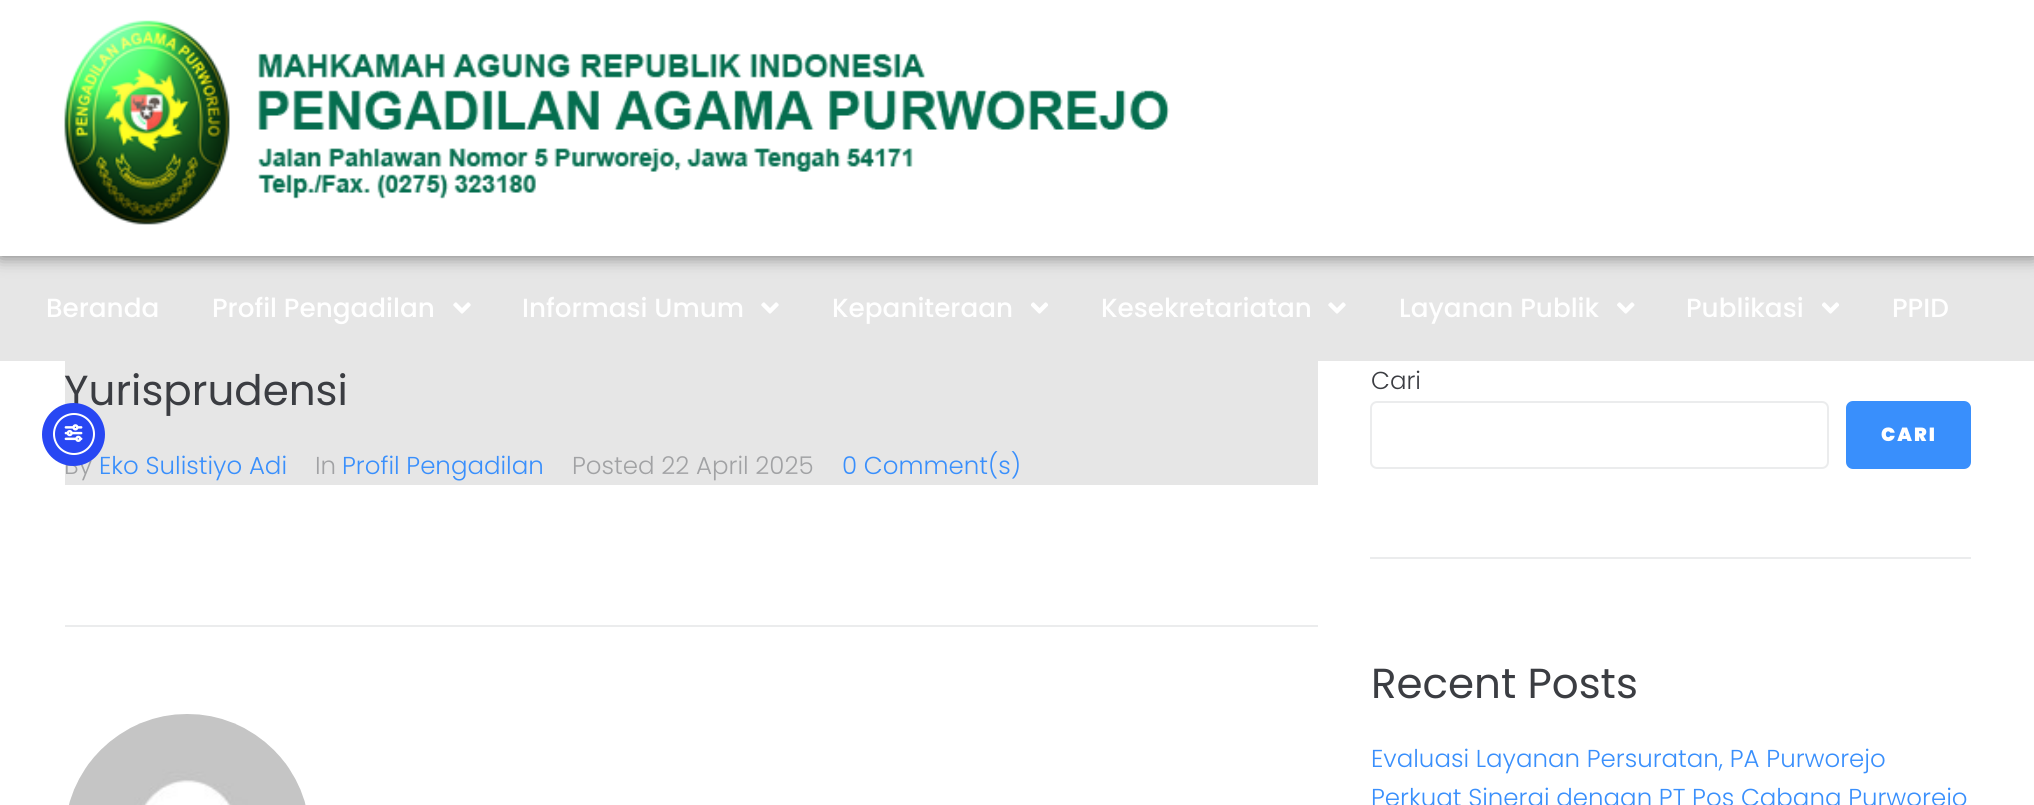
import math
import cairo


def use_color(cr, r, g, b):
  cr.set_source_rgb(r / 255, g / 255, b / 255)

def text(cr, x, y, s, family, size, color, bold=False, italic=False):
  cr.select_font_face(family, cairo.FONT_SLANT_ITALIC if italic else cairo.FONT_SLANT_NORMAL, cairo.FONT_WEIGHT_BOLD if bold else cairo.FONT_WEIGHT_NORMAL)
  cr.set_font_size(size)
  use_color(cr, *color)
  cr.move_to(x, y)
  cr.show_text(s)

def spaced_text(cr, x, y, s, letter, word):
  cr.move_to(x, y)
  for ch in s:
    cr.show_text(ch)
    cr.rel_move_to(letter + word * (ch == ' '), 0)

def box(cr, x, y, w, h, *color):
  use_color(cr, *color)
  cr.rectangle(x, y, w, h)
  cr.fill()

def round_rect(cr, x, y, w, h, r):
  cr.new_sub_path()
  for i, (u, v) in enumerate([(x + w - r, y + h - r), (x + r, y + h - r), (x + r, y + r), (x + w - r, y + r)]):
    cr.arc(u, v, r, i * math.pi / 2, (i + 1) * math.pi / 2)
  cr.close_path()

def shadow(cr, x, y, w, h, r, blur, alpha):
  cr.push_group_with_content(cairo.CONTENT_ALPHA)
  cr.set_operator(cairo.OPERATOR_SOURCE)
  for i in range(15, -16, -2):
    e = blur * i / 6
    if min(w, h) + 2 * e > 0:
      cr.set_source_rgba(0, 0, 0, alpha * math.erfc((i - 1) / 8.5) / 2)
      round_rect(cr, x - e, y - e, w + 2 * e, h + 2 * e, max(0, min(r + e + blur * .6, min(w, h) / 2 + e)))
      cr.fill()
  cr.mask(cr.pop_group())

def picture(cr, path, x, y, w, h):
  cr.save()
  cr.set_source_surface(cairo.ImageSurface.create_from_png(path), x, y)
  cr.rectangle(x, y, w, h)
  cr.fill()
  cr.restore()

def draw(cr):
  use_color(cr, 255, 255, 255)
  cr.paint()
  box(cr, 0, 256, 2034, 105, 230, 230, 230)
  use_color(cr, 0, 0, 0)
  shadow(cr, 0, 0, 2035, 256, 0, 9, 0.5)
  box(cr, 0, 0, 2034, 256, 255, 255, 255)
  picture(cr, "img_01.png", 64, 20, 1106, 205)
  picture(cr, "img_02.png", 453, 302, 18, 12)
  picture(cr, "img_02.png", 761, 302, 18, 12)
  picture(cr, "img_03.png", 1031, 302, 17, 12)
  picture(cr, "img_02.png", 1328, 302, 18, 12)
  picture(cr, "img_04.png", 1617, 302, 18, 12)
  picture(cr, "img_03.png", 1822, 302, 17, 12)
  box(cr, 65, 625, 1253, 2, 235, 236, 237)
  box(cr, 65, 361, 1253, 124, 230, 230, 230)
  picture(cr, "img_05.png", 69, 714, 237, 91)
  round_rect(cr, 1371, 402, 457, 66, 6)
  use_color(cr, 235, 236, 237)
  cr.stroke()
  use_color(cr, 57, 143, 252)
  round_rect(cr, 1846, 401, 125, 68, 7)
  cr.fill()
  box(cr, 1370, 557, 601, 2, 235, 236, 237)
  text(cr, 46, 317, "Beranda", "Poppins Medium", 26.25, (255, 255, 255))
  text(cr, 212, 317, "Profil Pengadilan", "Poppins Medium", 26.25, (255, 255, 255))
  text(cr, 522, 317, "Informasi Umum", "Poppins Medium", 26.25, (255, 255, 255))
  text(cr, 832, 317, "Kepaniteraan", "Poppins Medium", 26.25, (255, 255, 255))
  text(cr, 1101, 317, "Kesekretariatan", "Poppins Medium", 26.25, (255, 255, 255))
  text(cr, 1399, 317, "Layanan Publik", "Poppins Medium", 26.25, (255, 255, 255))
  text(cr, 1686, 317, "Publikasi", "Poppins Medium", 26.25, (255, 255, 255))
  text(cr, 1892, 317, "PPID", "Poppins Medium", 26.25, (255, 255, 255))
  text(cr, 64, 405, "Yurisprudensi", "Poppins", 42, (59, 61, 66))
  text(cr, 64, 474, "By", "Poppins Light", 24.5, (161, 162, 164))
  text(cr, 99, 474, "Eko Sulistiyo Adi", "Poppins Light", 24.5, (57, 143, 252))
  text(cr, 315, 474, "In", "Poppins Light", 24.5, (161, 162, 164))
  text(cr, 342, 474, "Profil Pengadilan", "Poppins Light", 24.5, (57, 143, 252))
  text(cr, 572, 474, "Posted 22 April 2025", "Poppins Light", 24.5, (161, 162, 164))
  text(cr, 842, 474, "0 Comment(s)", "Poppins Light", 24.5, (57, 143, 252))
  text(cr, 1371, 389, "Cari", "Poppins Light", 24.5, (59, 61, 66))
  cr.select_font_face("Poppins Black")
  cr.set_font_size(19)
  use_color(cr, 255, 255, 255)
  spaced_text(cr, 1881, 441, "CARI", 2, 0)
  text(cr, 1371, 698, "Recent Posts", "Poppins", 42, (59, 61, 66))
  text(cr, 1371, 767, "Evaluasi Layanan Persuratan, PA Purworejo", "Poppins Light", 24.5, (57, 143, 252))
  text(cr, 1371, 806, "Perkuat Sinergi dengan PT Pos Cabang Purworejo", "Poppins Light", 24.5, (57, 143, 252))
  use_color(cr, 40, 71, 243)
  cr.new_path()
  cr.arc(73.5, 434.5, 31.5, 0, 2 * math.pi)
  cr.fill()
  cr.arc(74, 434, 20, 0, 2 * math.pi)
  use_color(cr, 255, 255, 255)
  cr.stroke()
  picture(cr, "img_06.png", 64, 424, 19, 18)


surface = cairo.ImageSurface(cairo.FORMAT_RGB24, 2034, 805)
cr = cairo.Context(surface)
options = cairo.FontOptions()
options.set_hint_metrics(cairo.HINT_METRICS_OFF)
options.set_hint_style(cairo.HINT_STYLE_NONE)
cr.set_font_options(options)
cr.set_miter_limit(4)
draw(cr)
surface.write_to_png("out.png")
